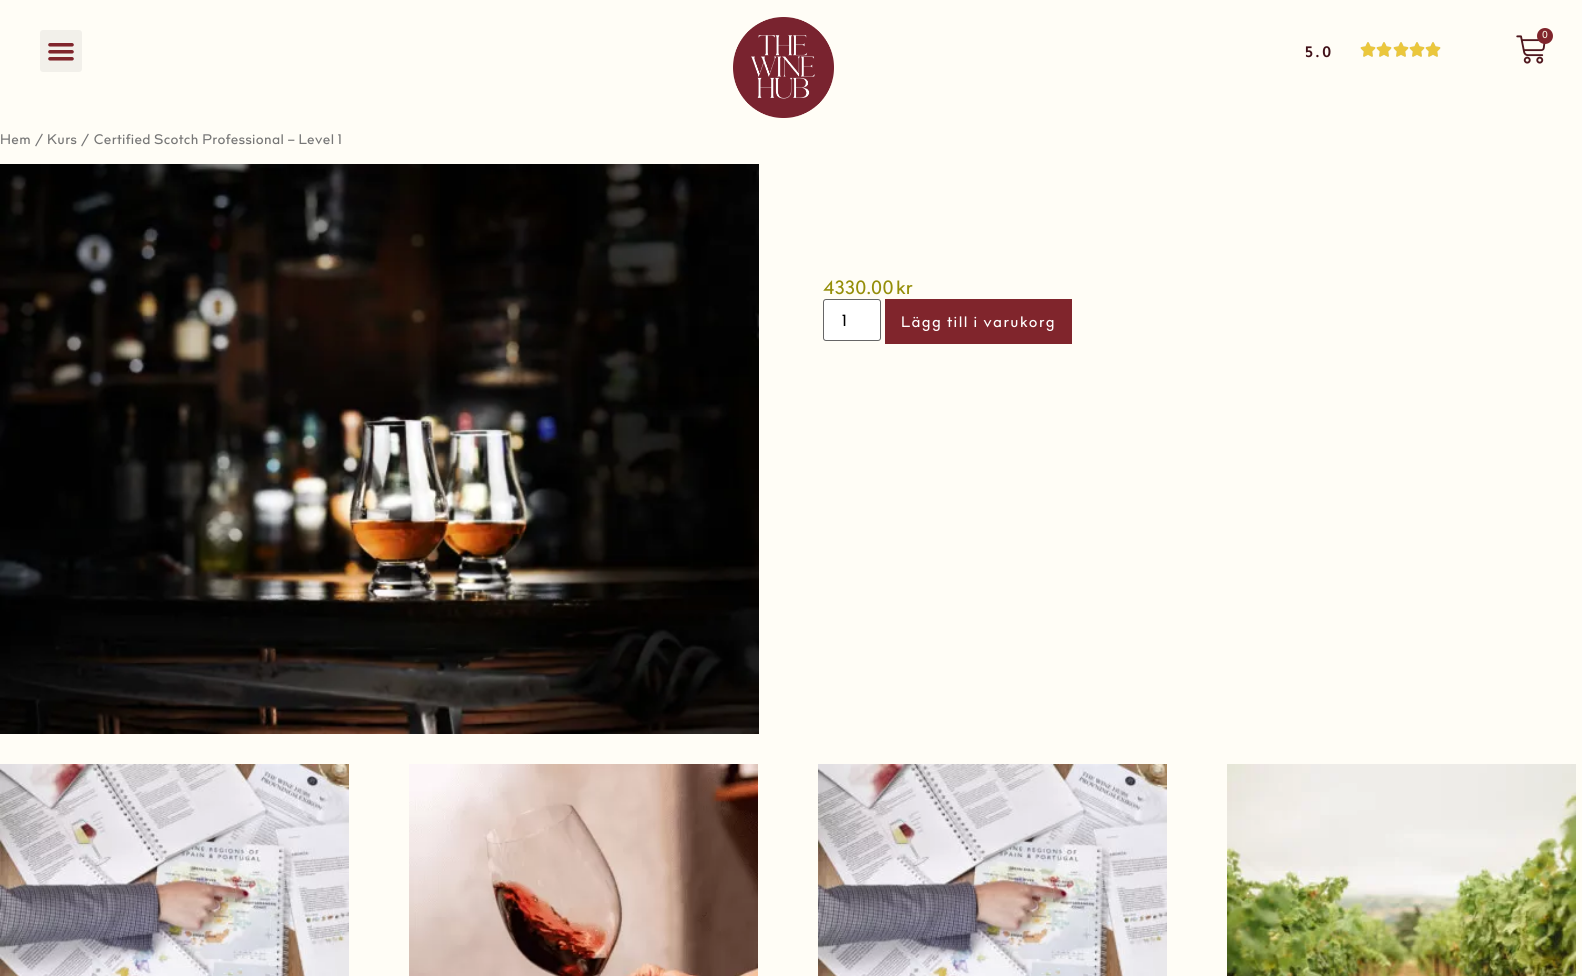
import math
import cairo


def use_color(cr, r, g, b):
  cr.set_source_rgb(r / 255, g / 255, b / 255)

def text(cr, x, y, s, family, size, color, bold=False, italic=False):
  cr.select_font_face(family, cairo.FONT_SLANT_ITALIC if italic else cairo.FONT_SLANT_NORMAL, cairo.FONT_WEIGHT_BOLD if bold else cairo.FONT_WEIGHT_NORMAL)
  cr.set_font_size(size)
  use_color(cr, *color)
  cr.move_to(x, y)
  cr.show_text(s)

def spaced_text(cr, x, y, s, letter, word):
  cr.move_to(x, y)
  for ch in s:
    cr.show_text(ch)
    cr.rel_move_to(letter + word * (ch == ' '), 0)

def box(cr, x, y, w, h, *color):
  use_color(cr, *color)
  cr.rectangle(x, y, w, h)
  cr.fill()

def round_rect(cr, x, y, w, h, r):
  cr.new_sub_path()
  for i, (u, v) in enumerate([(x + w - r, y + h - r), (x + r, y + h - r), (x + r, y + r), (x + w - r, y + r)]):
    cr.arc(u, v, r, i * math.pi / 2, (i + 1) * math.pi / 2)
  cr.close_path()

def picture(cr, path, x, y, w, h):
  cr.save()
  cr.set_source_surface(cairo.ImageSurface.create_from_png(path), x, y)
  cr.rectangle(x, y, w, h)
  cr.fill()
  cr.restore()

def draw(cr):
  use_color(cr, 255, 253, 246)
  cr.paint()
  use_color(cr, 242, 240, 234)
  round_rect(cr, 40, 30, 42, 42, 3)
  cr.fill()
  picture(cr, "img_01.png", 48, 43, 26, 18)
  picture(cr, "img_02.png", 733, 17, 101, 101)
  picture(cr, "img_03.png", 1516, 35, 30, 29)
  use_color(cr, 128, 37, 44)
  cr.arc(1545, 36, 8, 0, 2 * math.pi)
  cr.fill()
  picture(cr, "img_04.png", 1360, 42, 16, 15)
  picture(cr, "img_05.png", 1360, 42, 16, 15)
  picture(cr, "img_04.png", 1376, 42, 16, 15)
  picture(cr, "img_05.png", 1376, 42, 16, 15)
  picture(cr, "img_04.png", 1393, 42, 16, 15)
  picture(cr, "img_05.png", 1393, 42, 16, 15)
  picture(cr, "img_04.png", 1409, 42, 16, 15)
  picture(cr, "img_05.png", 1409, 42, 16, 15)
  picture(cr, "img_04.png", 1425, 42, 16, 15)
  picture(cr, "img_05.png", 1425, 42, 16, 15)
  picture(cr, "img_06.png", 0, 164, 759, 570)
  use_color(cr, 255, 255, 255)
  round_rect(cr, 823.5, 299.5, 57, 41, 2.5)
  cr.fill_preserve()
  use_color(cr, 102, 102, 102)
  cr.set_line_width(1)
  cr.stroke()
  box(cr, 885, 299, 187, 45, 128, 37, 44)
  picture(cr, "img_07.png", 0, 764, 349, 212)
  picture(cr, "img_08.png", 409, 764, 349, 212)
  picture(cr, "img_07.png", 818, 764, 349, 212)
  picture(cr, "img_09.png", 1227, 764, 349, 212)
  cr.select_font_face("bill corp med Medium")
  cr.set_font_size(10)
  use_color(cr, 248, 244, 227)
  spaced_text(cr, 1542, 38, "0", 0.4, 0)
  cr.select_font_face("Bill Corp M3", cairo.FONT_SLANT_NORMAL, cairo.FONT_WEIGHT_BOLD)
  cr.set_font_size(15)
  use_color(cr, 65, 17, 25)
  spaced_text(cr, 1305, 57, "5.0", 3, 0)
  cr.select_font_face("Bill Corp M3 Medium")
  cr.set_font_size(13.75)
  use_color(cr, 118, 118, 118)
  spaced_text(cr, 0, 144, "Hem", 0.4, 0)
  spaced_text(cr, 34, 144, "/", 0.4, 0)
  spaced_text(cr, 47, 144, "Kurs", 0.4, 0)
  spaced_text(cr, 80, 144, "/ Certified Scotch Professional – Level 1", 0.4, 0)
  cr.set_font_size(19)
  use_color(cr, 149, 142, 9)
  spaced_text(cr, 823, 294, "4330.00", 0.4, 0)
  spaced_text(cr, 896, 294, "kr", 0.4, 0)
  text(cr, 842, 326, "1", "Bill Corp M3 Medium", 16, (0, 0, 0))
  cr.set_font_size(15)
  use_color(cr, 255, 255, 255)
  spaced_text(cr, 901, 327, "Lägg till i varukorg", 1.5, 0)


surface = cairo.ImageSurface(cairo.FORMAT_RGB24, 1582, 976)
cr = cairo.Context(surface)
options = cairo.FontOptions()
options.set_hint_metrics(cairo.HINT_METRICS_OFF)
options.set_hint_style(cairo.HINT_STYLE_NONE)
cr.set_font_options(options)
cr.set_miter_limit(4)
draw(cr)
surface.write_to_png("out.png")
